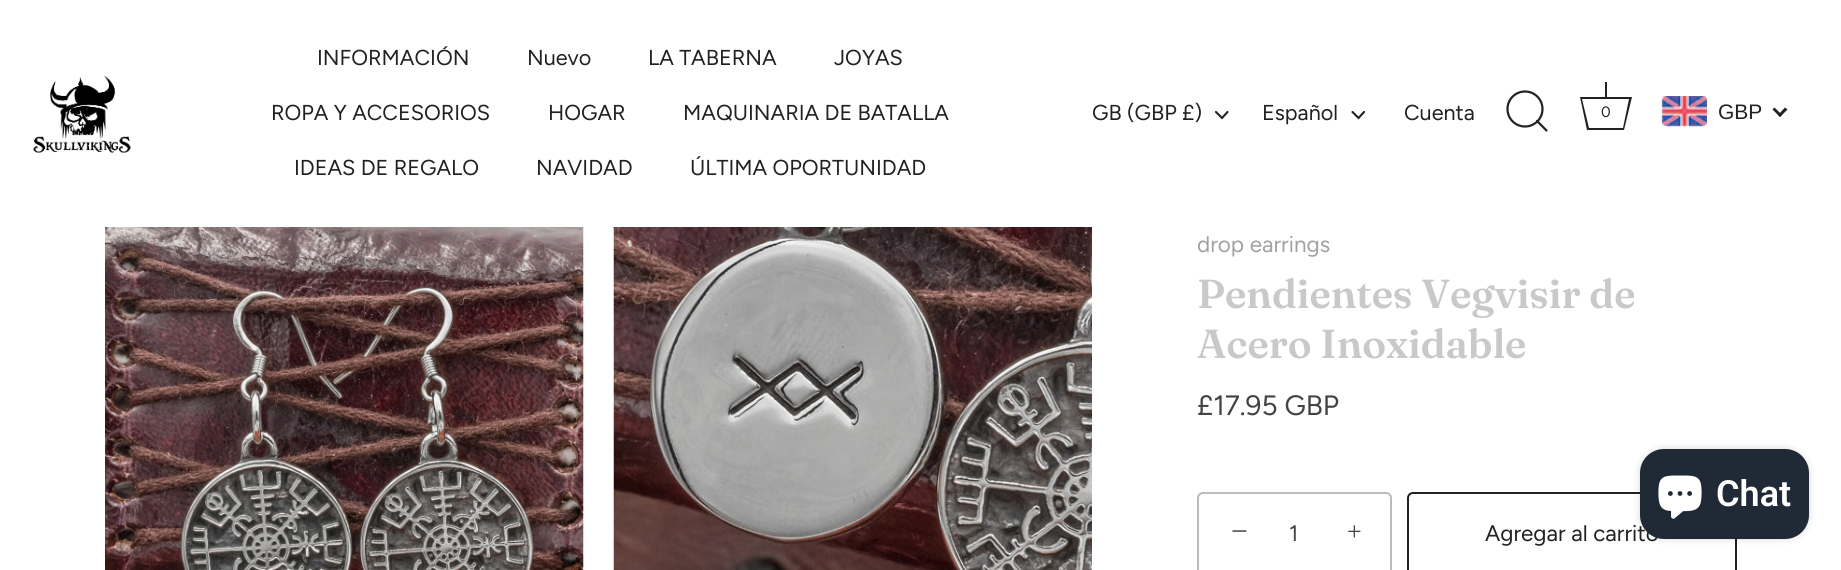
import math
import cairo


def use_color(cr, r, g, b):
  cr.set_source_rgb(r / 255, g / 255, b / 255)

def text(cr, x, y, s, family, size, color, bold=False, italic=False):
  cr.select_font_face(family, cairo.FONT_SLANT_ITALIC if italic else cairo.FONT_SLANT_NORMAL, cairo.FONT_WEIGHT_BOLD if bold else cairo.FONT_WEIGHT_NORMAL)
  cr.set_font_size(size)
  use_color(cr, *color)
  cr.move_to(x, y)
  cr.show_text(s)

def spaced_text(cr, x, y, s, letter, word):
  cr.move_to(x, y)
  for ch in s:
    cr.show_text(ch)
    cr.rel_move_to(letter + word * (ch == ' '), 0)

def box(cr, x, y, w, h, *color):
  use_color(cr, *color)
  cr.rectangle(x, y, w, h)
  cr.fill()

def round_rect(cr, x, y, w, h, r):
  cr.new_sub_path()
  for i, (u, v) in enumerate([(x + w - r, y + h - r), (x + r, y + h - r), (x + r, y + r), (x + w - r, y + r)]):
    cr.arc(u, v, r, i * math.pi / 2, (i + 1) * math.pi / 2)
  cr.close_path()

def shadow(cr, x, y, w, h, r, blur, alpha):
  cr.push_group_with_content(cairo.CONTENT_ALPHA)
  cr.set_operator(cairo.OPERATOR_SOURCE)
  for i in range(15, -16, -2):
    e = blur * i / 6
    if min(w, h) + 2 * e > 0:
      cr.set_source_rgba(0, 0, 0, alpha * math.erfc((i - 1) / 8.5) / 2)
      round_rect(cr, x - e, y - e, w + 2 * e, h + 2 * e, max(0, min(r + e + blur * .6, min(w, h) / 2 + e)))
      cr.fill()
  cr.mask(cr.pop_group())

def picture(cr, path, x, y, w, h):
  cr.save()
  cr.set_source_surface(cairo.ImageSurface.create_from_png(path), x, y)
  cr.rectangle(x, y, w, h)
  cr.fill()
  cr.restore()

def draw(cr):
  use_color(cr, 255, 255, 255)
  cr.paint()
  picture(cr, "img_01.png", 33, 75, 99, 78)
  cr.new_path()
  cr.move_to(1216, 112)
  cr.line_to(1222, 118)
  cr.line_to(1227.5, 112)
  use_color(cr, 33, 33, 33)
  cr.set_line_width(2.1)
  cr.set_line_cap(cairo.LINE_CAP_ROUND)
  cr.stroke()
  cr.new_path()
  cr.move_to(1352.5, 112)
  cr.line_to(1358.5, 118)
  cr.line_to(1364, 112)
  cr.stroke()
  cr.arc(1525, 109, 17.5, 0, 2 * math.pi)
  cr.set_line_width(2.2)
  cr.set_line_cap(cairo.LINE_CAP_BUTT)
  cr.stroke()
  cr.new_path()
  cr.move_to(1546.5, 130.5)
  cr.line_to(1537, 121)
  cr.set_line_cap(cairo.LINE_CAP_ROUND)
  cr.set_line_join(cairo.LINE_JOIN_ROUND)
  cr.stroke()
  box(cr, 1605, 82, 2, 15, 33, 33, 33)
  cr.new_path()
  cr.move_to(1629, 99)
  cr.line_to(1623, 128)
  cr.line_to(1589, 128)
  cr.line_to(1582, 99)
  cr.line_to(1629, 99)
  cr.move_to(1632, 97)
  cr.line_to(1580, 97)
  cr.line_to(1587, 130)
  cr.line_to(1624, 130)
  cr.close_path()
  cr.fill()
  picture(cr, "img_02.png", 1661, 96, 46, 31)
  cr.new_path()
  cr.move_to(1785, 107.5)
  cr.line_to(1787.5, 109.5)
  cr.line_to(1780, 117)
  cr.line_to(1778, 115)
  cr.close_path()
  cr.fill()
  cr.new_path()
  cr.move_to(1774.5, 107.5)
  cr.line_to(1782, 115)
  cr.line_to(1780, 117)
  cr.line_to(1772.5, 109.5)
  cr.close_path()
  cr.fill()
  picture(cr, "img_03.png", 105, 227, 479, 343)
  picture(cr, "img_04.png", 613, 227, 479, 343)
  round_rect(cr, 1198, 493, 193, 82, 5)
  use_color(cr, 187, 187, 187)
  cr.set_line_width(2)
  cr.set_line_cap(cairo.LINE_CAP_BUTT)
  cr.set_line_join(cairo.LINE_JOIN_MITER)
  cr.stroke()
  round_rect(cr, 1408, 493, 328, 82, 5)
  use_color(cr, 33, 33, 33)
  cr.stroke()
  use_color(cr, 0, 0, 0)
  shadow(cr, 1640, 449, 169, 90, 24, 4, 0.15)
  text(cr, 317, 65, "INFORMACIÓN", "Figtree", 21.6, (33, 33, 33))
  text(cr, 527, 65, "Nuevo", "Figtree", 21.6, (33, 33, 33))
  text(cr, 648, 65, "LA TABERNA", "Figtree", 21.6, (33, 33, 33))
  text(cr, 834, 65, "JOYAS", "Figtree", 21.6, (33, 33, 33))
  text(cr, 271, 120, "ROPA Y ACCESORIOS", "Figtree", 21.6, (33, 33, 33))
  text(cr, 548, 120, "HOGAR", "Figtree", 21.6, (33, 33, 33))
  text(cr, 683, 120, "MAQUINARIA DE BATALLA", "Figtree", 21.6, (33, 33, 33))
  text(cr, 294, 175, "IDEAS DE REGALO", "Figtree", 21.6, (33, 33, 33))
  text(cr, 536, 175, "NAVIDAD", "Figtree", 21.6, (33, 33, 33))
  text(cr, 690, 175, "ÚLTIMA OPORTUNIDAD", "Figtree", 21.6, (33, 33, 33))
  text(cr, 1092, 120, "GB (GBP £)", "Figtree", 21.6, (33, 33, 33))
  text(cr, 1262, 120, "Español", "Figtree", 21.6, (33, 33, 33))
  text(cr, 1404, 120, "Cuenta", "Figtree", 21.6, (33, 33, 33))
  text(cr, 1601, 117, "0", "Figtree", 15, (33, 33, 33))
  text(cr, 1718, 119, "GBP", "Liberation Sans", 21, (33, 33, 33))
  text(cr, 1197, 252, "drop earrings", "Figtree", 22.5, (161, 161, 161))
  text(cr, 1197, 308, "Pendientes Vegvisir de", "Fraunces SemiBold", 40.5, (201, 201, 201))
  text(cr, 1197, 358, "Acero Inoxidable", "Fraunces SemiBold", 40.5, (201, 201, 201))
  text(cr, 1197, 415, "£17.95 GBP", "Figtree", 28, (67, 67, 67))
  text(cr, 1231, 541, "−", "Liberation Serif", 30, (67, 67, 67))
  cr.select_font_face("Figtree")
  cr.set_font_size(22.5)
  spaced_text(cr, 1289, 541, "1", 1, 0)
  text(cr, 1347, 540, "+", "Liberation Serif", 26, (67, 67, 67))
  text(cr, 1485, 541, "Agregar al carrito", "Figtree", 22.5, (33, 33, 33))
  use_color(cr, 32, 42, 54)
  round_rect(cr, 1640, 449, 169, 90, 24)
  cr.fill()
  picture(cr, "img_05.png", 1658, 475, 44, 44)
  text(cr, 1716, 506, "Chat", "Roboto SemiBold", 36, (255, 255, 255))


surface = cairo.ImageSurface(cairo.FORMAT_RGB24, 1841, 570)
cr = cairo.Context(surface)
options = cairo.FontOptions()
options.set_hint_metrics(cairo.HINT_METRICS_OFF)
options.set_hint_style(cairo.HINT_STYLE_NONE)
cr.set_font_options(options)
cr.set_miter_limit(4)
draw(cr)
surface.write_to_png("out.png")
